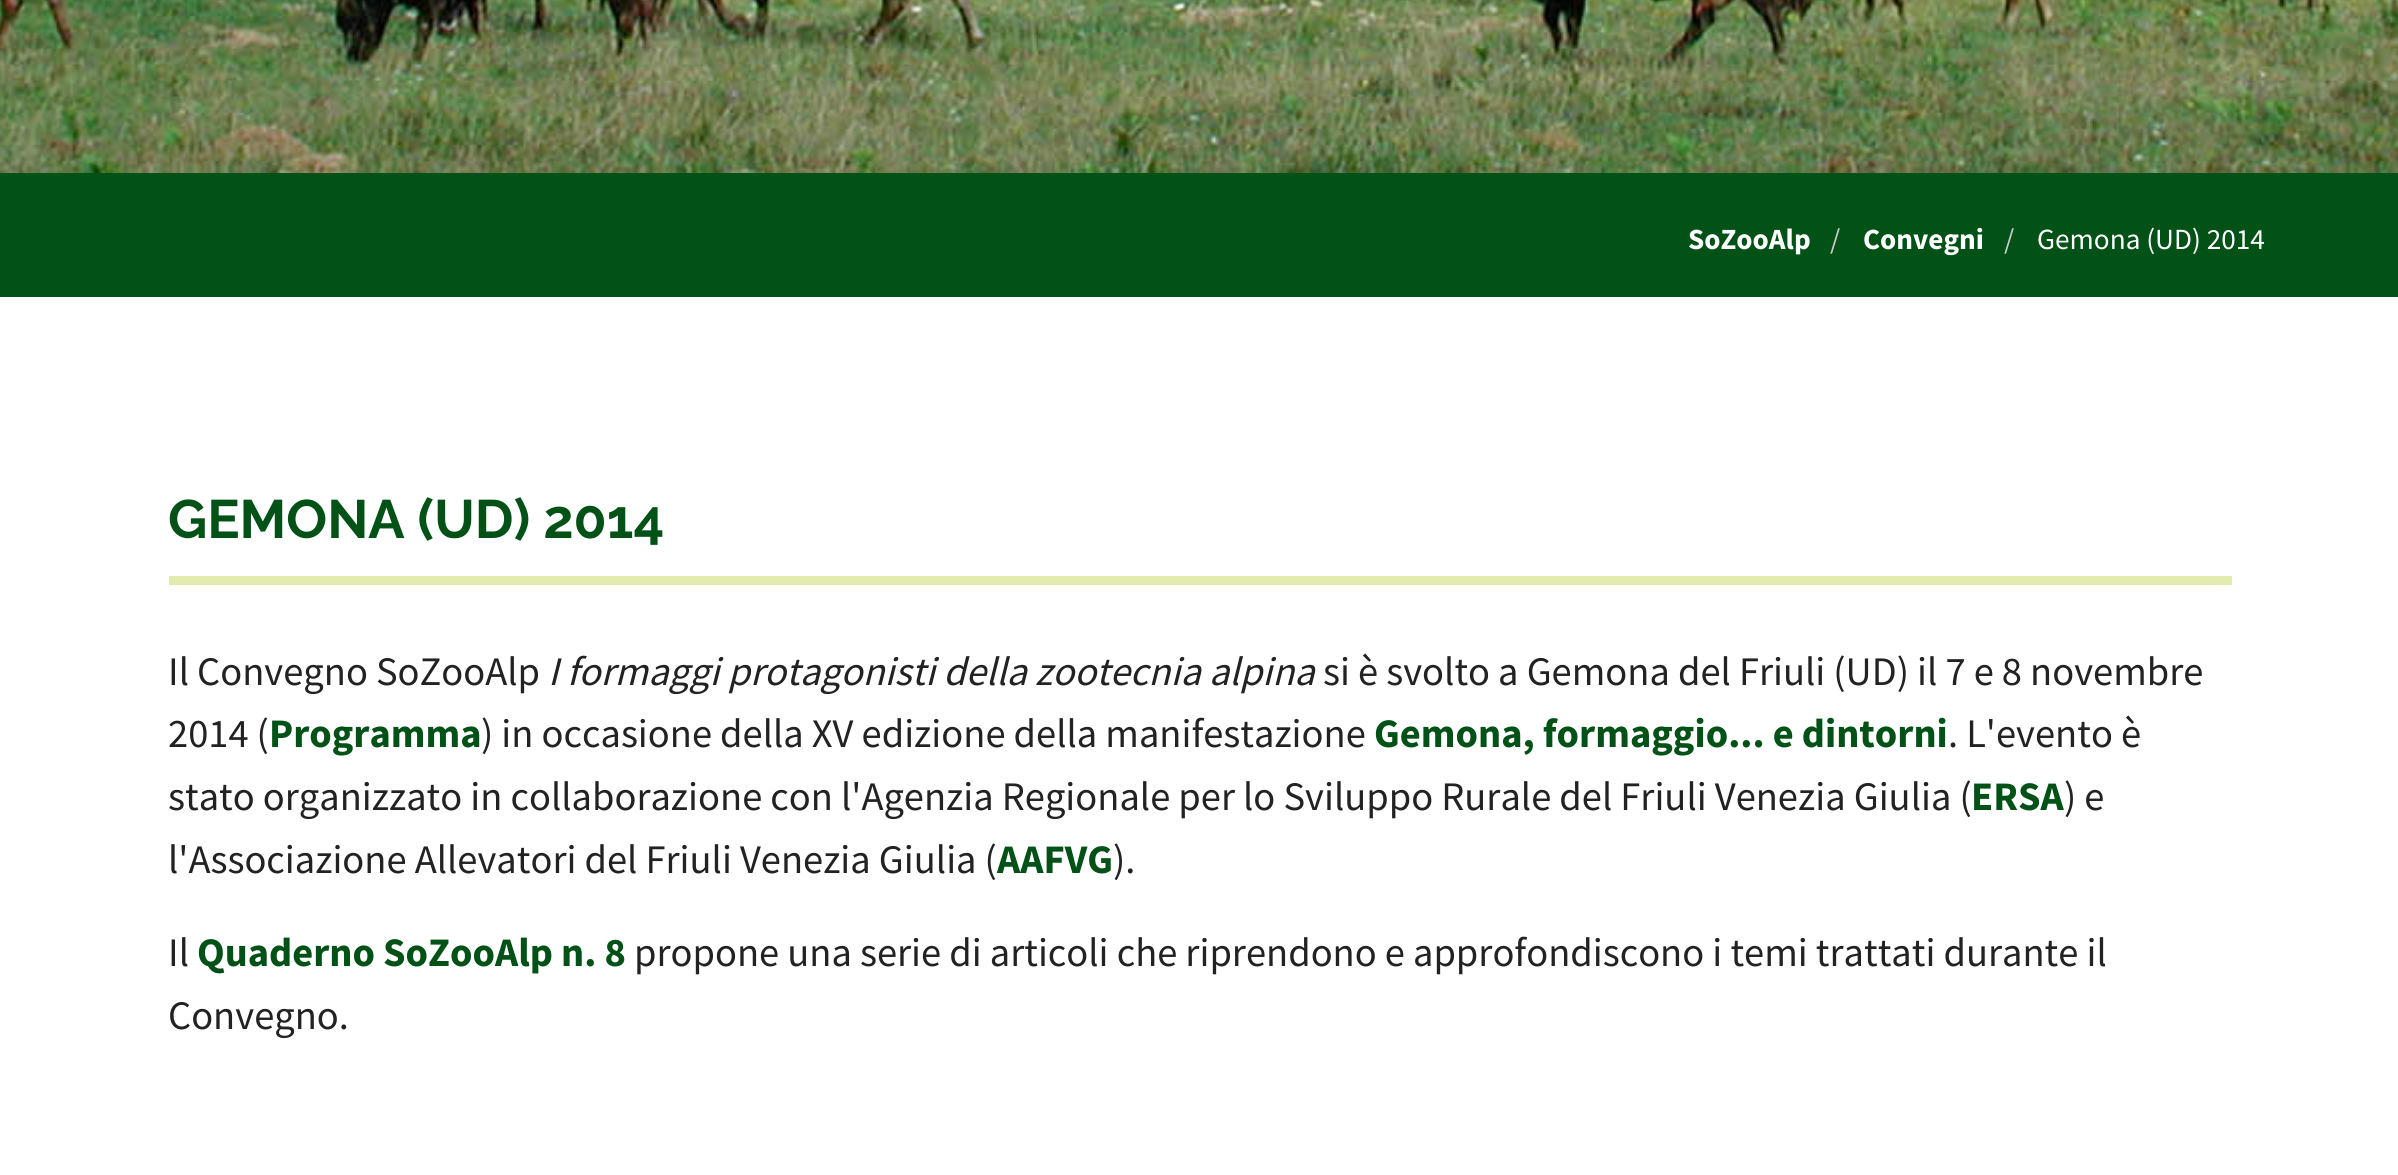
import math
import cairo


def use_color(cr, r, g, b):
  cr.set_source_rgb(r / 255, g / 255, b / 255)

def text(cr, x, y, s, family, size, color, bold=False, italic=False):
  cr.select_font_face(family, cairo.FONT_SLANT_ITALIC if italic else cairo.FONT_SLANT_NORMAL, cairo.FONT_WEIGHT_BOLD if bold else cairo.FONT_WEIGHT_NORMAL)
  cr.set_font_size(size)
  use_color(cr, *color)
  cr.move_to(x, y)
  cr.show_text(s)

def box(cr, x, y, w, h, *color):
  use_color(cr, *color)
  cr.rectangle(x, y, w, h)
  cr.fill()

def picture(cr, path, x, y, w, h):
  cr.save()
  cr.set_source_surface(cairo.ImageSurface.create_from_png(path), x, y)
  cr.rectangle(x, y, w, h)
  cr.fill()
  cr.restore()

def draw(cr):
  use_color(cr, 255, 255, 255)
  cr.paint()
  picture(cr, "img_01.png", 0, 0, 2398, 173)
  box(cr, 0, 173, 2398, 124, 2, 81, 22)
  box(cr, 169, 576, 2063, 9, 227, 235, 174)
  text(cr, 1688, 249, "SoZooAlp", "Source Sans Pro", 29.25, (255, 255, 255), bold=True)
  text(cr, 1830, 249, "/", "Source Sans Pro", 29.25, (204, 204, 204))
  text(cr, 1863, 249, "Convegni", "Source Sans Pro", 29.25, (255, 255, 255), bold=True)
  text(cr, 2004, 249, "/", "Source Sans Pro", 29.25, (204, 204, 204))
  text(cr, 2037, 249, "Gemona (UD) 2014", "Source Sans Pro", 29.25, (255, 255, 255))
  text(cr, 168, 538, "GEMONA (UD) 2014", "Raleway", 54, (2, 81, 22), bold=True)
  text(cr, 168, 685, "Il Convegno SoZooAlp", "Source Sans Pro", 40.5, (34, 34, 34))
  text(cr, 548, 685, "I formaggi protagonisti della zootecnia alpina", "Source Sans Pro", 40.5, (34, 34, 34), italic=True)
  text(cr, 1323, 685, "si è svolto a Gemona del Friuli (UD) il 7 e 8 novembre", "Source Sans Pro", 40.5, (34, 34, 34))
  text(cr, 168, 747, "2014 (", "Source Sans Pro", 40.5, (34, 34, 34))
  text(cr, 269, 747, "Programma", "Source Sans Pro", 40.5, (2, 81, 22), bold=True)
  text(cr, 481, 747, ") in occasione della XV edizione della manifestazione", "Source Sans Pro", 40.5, (34, 34, 34))
  text(cr, 1374, 747, "Gemona, formaggio... e dintorni", "Source Sans Pro", 40.5, (2, 81, 22), bold=True)
  text(cr, 1948, 747, ". L'evento è", "Source Sans Pro", 40.5, (34, 34, 34))
  text(cr, 168, 810, "stato organizzato in collaborazione con l'Agenzia Regionale per lo Sviluppo Rurale del Friuli Venezia Giulia (", "Source Sans Pro", 40.5, (34, 34, 34))
  text(cr, 1971, 810, "ERSA", "Source Sans Pro", 40.5, (2, 81, 22), bold=True)
  text(cr, 2064, 810, ") e", "Source Sans Pro", 40.5, (34, 34, 34))
  text(cr, 168, 873, "l'Associazione Allevatori del Friuli Venezia Giulia (", "Source Sans Pro", 40.5, (34, 34, 34))
  text(cr, 997, 873, "AAFVG", "Source Sans Pro", 40.5, (2, 81, 22), bold=True)
  text(cr, 1113, 873, ").", "Source Sans Pro", 40.5, (34, 34, 34))
  text(cr, 168, 966, "Il", "Source Sans Pro", 40.5, (34, 34, 34))
  text(cr, 197, 966, "Quaderno SoZooAlp n. 8", "Source Sans Pro", 40.5, (2, 81, 22), bold=True)
  text(cr, 634, 966, "propone una serie di articoli che riprendono e approfondiscono i temi trattati durante il", "Source Sans Pro", 40.5, (34, 34, 34))
  text(cr, 168, 1029, "Convegno.", "Source Sans Pro", 40.5, (34, 34, 34))


surface = cairo.ImageSurface(cairo.FORMAT_RGB24, 2398, 1175)
cr = cairo.Context(surface)
options = cairo.FontOptions()
options.set_hint_metrics(cairo.HINT_METRICS_OFF)
options.set_hint_style(cairo.HINT_STYLE_NONE)
cr.set_font_options(options)
cr.set_miter_limit(4)
draw(cr)
surface.write_to_png("out.png")
